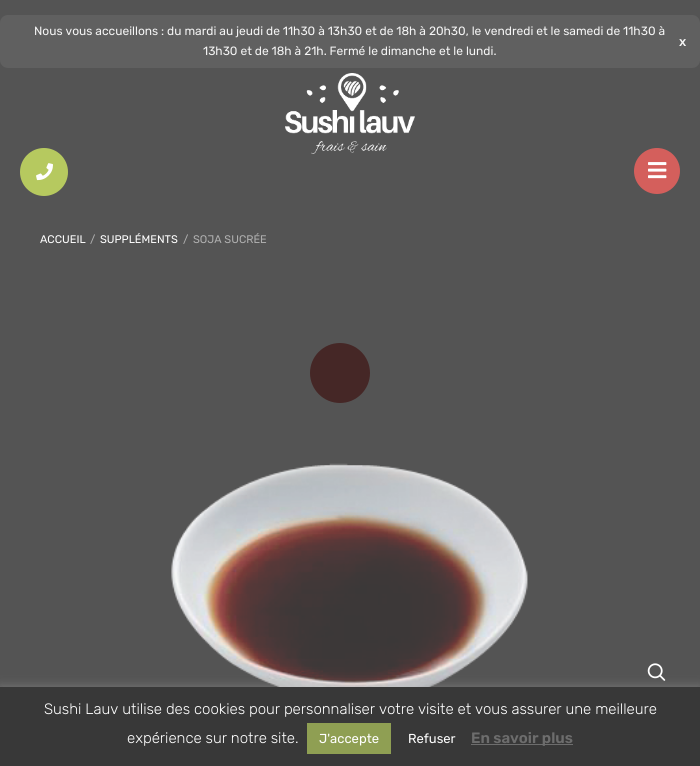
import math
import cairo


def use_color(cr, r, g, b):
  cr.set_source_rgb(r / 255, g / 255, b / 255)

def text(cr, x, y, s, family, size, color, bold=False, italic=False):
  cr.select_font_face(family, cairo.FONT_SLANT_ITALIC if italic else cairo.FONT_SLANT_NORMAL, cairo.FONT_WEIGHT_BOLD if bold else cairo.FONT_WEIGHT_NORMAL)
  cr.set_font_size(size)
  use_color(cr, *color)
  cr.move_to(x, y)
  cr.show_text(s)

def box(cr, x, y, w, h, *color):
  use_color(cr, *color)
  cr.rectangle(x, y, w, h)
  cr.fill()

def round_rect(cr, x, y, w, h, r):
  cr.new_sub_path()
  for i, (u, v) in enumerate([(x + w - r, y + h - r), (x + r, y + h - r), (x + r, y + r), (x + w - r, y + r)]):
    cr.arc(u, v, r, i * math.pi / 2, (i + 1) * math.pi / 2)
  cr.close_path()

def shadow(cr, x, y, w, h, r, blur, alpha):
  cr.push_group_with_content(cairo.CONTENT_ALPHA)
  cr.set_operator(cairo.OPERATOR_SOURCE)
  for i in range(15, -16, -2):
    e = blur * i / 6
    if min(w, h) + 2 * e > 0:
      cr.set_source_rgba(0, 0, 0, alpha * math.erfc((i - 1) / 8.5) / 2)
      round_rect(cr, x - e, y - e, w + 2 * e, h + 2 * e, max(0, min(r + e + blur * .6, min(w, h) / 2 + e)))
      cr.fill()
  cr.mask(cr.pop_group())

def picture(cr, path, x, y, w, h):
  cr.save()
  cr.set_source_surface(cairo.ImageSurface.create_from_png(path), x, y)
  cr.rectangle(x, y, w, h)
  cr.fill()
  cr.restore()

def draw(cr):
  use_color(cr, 84, 84, 84)
  cr.paint()
  use_color(cr, 96, 96, 96)
  round_rect(cr, 0, 15, 700, 53, 8)
  cr.fill()
  picture(cr, "img_01.png", 285, 73, 130, 81)
  use_color(cr, 182, 201, 95)
  cr.arc(44, 172, 24, 0, 2 * math.pi)
  cr.fill()
  picture(cr, "img_02.png", 36, 163, 17, 18)
  use_color(cr, 212, 95, 92)
  cr.arc(657, 171, 23, 0, 2 * math.pi)
  cr.fill()
  picture(cr, "img_03.png", 648, 162, 19, 17)
  picture(cr, "img_04.png", 647, 663, 19, 18)
  picture(cr, "img_05.png", 171, 463, 357, 224)
  use_color(cr, 69, 39, 38)
  cr.arc(340, 373, 30, 0, 2 * math.pi)
  cr.fill()
  use_color(cr, 190, 189, 189)
  shadow(cr, 0, 686, 700, 79, 0, 5, 0.3)
  box(cr, 0, 687, 700, 79, 56, 56, 56)
  box(cr, 307, 723, 84, 31, 143, 159, 83)
  box(cr, 471, 744, 102, 1, 109, 109, 109)
  text(cr, 34, 35, "Nous vous accueillons : du mardi au jeudi de 11h30 à 13h30 et de 18h à 20h30, le vendredi et le samedi de 11h30 à", "Rubik", 12, (244, 244, 244))
  text(cr, 679, 46, "x", "Liberation Sans", 13, (244, 244, 244), bold=True)
  text(cr, 203, 55, "13h30 et de 18h à 21h. Fermé le dimanche et le lundi.", "Rubik", 12, (244, 244, 244))
  text(cr, 40, 243, "ACCUEIL", "Rubik", 11, (255, 255, 255))
  text(cr, 90, 243, "/", "Rubik", 11, (175, 175, 175))
  text(cr, 100, 243, "SUPPLÉMENTS", "Rubik", 11, (255, 255, 255))
  text(cr, 183, 243, "/", "Rubik", 11, (175, 175, 175))
  text(cr, 193, 243, "SOJA SUCRÉE", "Rubik", 11, (175, 175, 175))
  text(cr, 44, 714, "Sushi Lauv utilise des cookies pour personnaliser votre visite et vous assurer une meilleure", "Rubik Light", 15, (255, 255, 255))
  text(cr, 127, 743, "expérience sur notre site.", "Rubik Light", 15, (255, 255, 255))
  text(cr, 319, 743, "J'accepte", "Rubik", 13, (255, 255, 255))
  text(cr, 408, 743, "Refuser", "Rubik", 13, (255, 255, 255))
  text(cr, 471, 743, "En savoir plus", "Rubik SemiBold", 15, (109, 109, 109))


surface = cairo.ImageSurface(cairo.FORMAT_RGB24, 700, 766)
cr = cairo.Context(surface)
options = cairo.FontOptions()
options.set_hint_metrics(cairo.HINT_METRICS_OFF)
options.set_hint_style(cairo.HINT_STYLE_NONE)
cr.set_font_options(options)
cr.set_miter_limit(4)
draw(cr)
surface.write_to_png("out.png")
